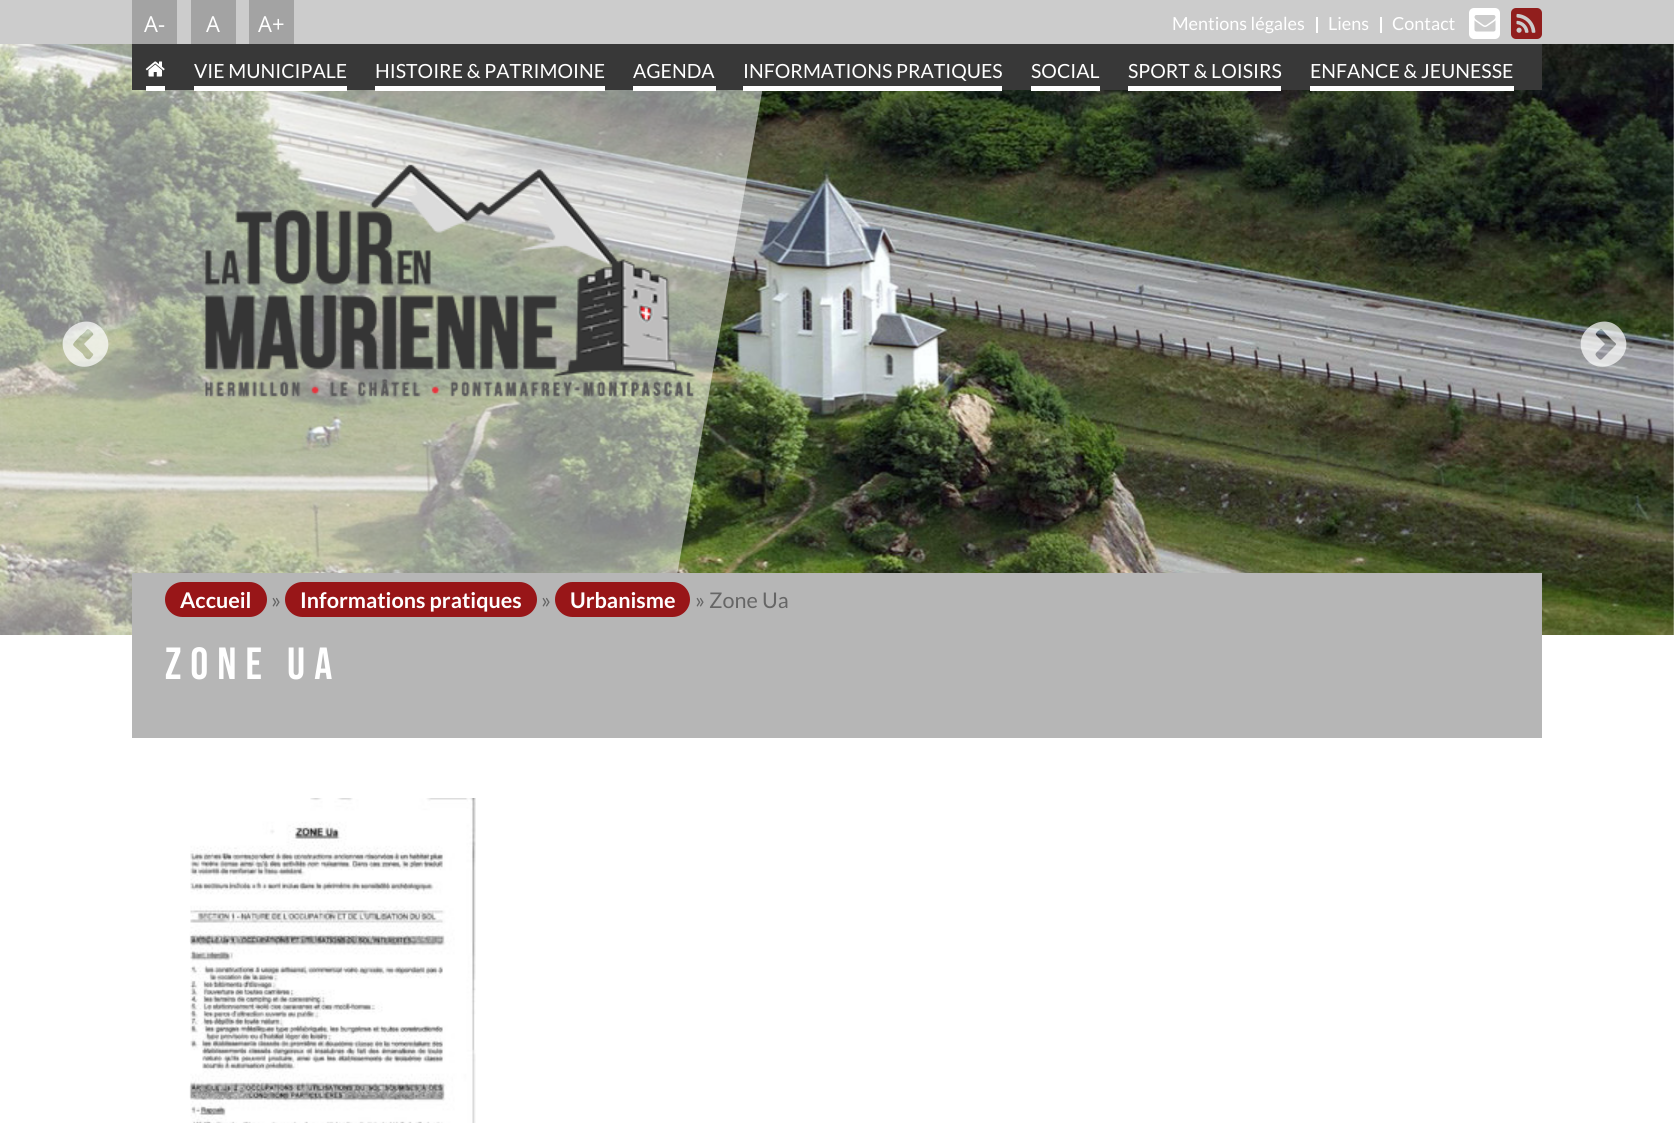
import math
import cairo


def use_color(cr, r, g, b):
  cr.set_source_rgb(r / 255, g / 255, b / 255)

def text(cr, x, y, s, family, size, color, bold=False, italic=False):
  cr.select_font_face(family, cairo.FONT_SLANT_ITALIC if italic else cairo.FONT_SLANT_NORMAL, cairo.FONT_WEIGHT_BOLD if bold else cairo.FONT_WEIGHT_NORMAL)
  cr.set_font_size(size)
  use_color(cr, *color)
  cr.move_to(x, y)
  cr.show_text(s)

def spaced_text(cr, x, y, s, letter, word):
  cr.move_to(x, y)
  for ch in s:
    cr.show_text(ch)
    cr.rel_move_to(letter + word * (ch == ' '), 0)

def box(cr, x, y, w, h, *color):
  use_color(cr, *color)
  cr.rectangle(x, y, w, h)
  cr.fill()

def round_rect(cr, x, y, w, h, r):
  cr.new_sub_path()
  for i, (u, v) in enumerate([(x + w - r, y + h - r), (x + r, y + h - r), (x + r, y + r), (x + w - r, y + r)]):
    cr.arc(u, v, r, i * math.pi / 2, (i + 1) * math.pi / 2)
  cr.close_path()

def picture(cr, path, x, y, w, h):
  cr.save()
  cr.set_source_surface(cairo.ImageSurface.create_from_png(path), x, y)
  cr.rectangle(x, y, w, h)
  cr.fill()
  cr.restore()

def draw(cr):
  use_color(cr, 255, 255, 255)
  cr.paint()
  box(cr, 0, 0, 1674, 44, 204, 204, 204)
  box(cr, 132, 0, 45, 44, 163, 163, 163)
  box(cr, 191, 0, 45, 44, 163, 163, 163)
  box(cr, 249, 0, 45, 44, 163, 163, 163)
  box(cr, 1316, 17, 2, 16, 255, 255, 255)
  box(cr, 1380, 17, 2, 16, 255, 255, 255)
  round_rect(cr, 1469, 8, 31, 31, 5)
  cr.fill()
  picture(cr, "img_01.png", 1474, 15, 22, 17)
  use_color(cr, 145, 30, 29)
  round_rect(cr, 1511, 8, 31, 31, 5)
  cr.fill()
  picture(cr, "img_02.png", 1516, 13, 20, 20)
  picture(cr, "img_05.png", 0, 44, 1674, 591)
  cr.save()
  cr.rectangle(0, 44, 1674, 591)
  cr.clip()
  cr.set_source_rgba(1, 1, 1, 0.5)
  cr.new_path()
  cr.move_to(478, 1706)
  cr.line_to(-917, 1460)
  cr.line_to(-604, -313)
  cr.line_to(790, -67)
  cr.close_path()
  cr.fill()
  cr.restore()
  box(cr, 132, 44, 1410, 46, 56, 56, 56)
  box(cr, 146, 86, 19, 5, 255, 255, 255)
  picture(cr, "img_03.png", 145, 61, 20, 16)
  box(cr, 194, 86, 153, 5, 255, 255, 255)
  box(cr, 375, 86, 230, 5, 255, 255, 255)
  box(cr, 633, 86, 83, 5, 255, 255, 255)
  box(cr, 743, 86, 259, 5, 255, 255, 255)
  box(cr, 1031, 86, 69, 5, 255, 255, 255)
  box(cr, 1128, 86, 153, 5, 255, 255, 255)
  box(cr, 1310, 86, 204, 5, 255, 255, 255)
  picture(cr, "img_04.png", 205, 164, 490, 233)
  cr.set_source_rgba(1, 1, 1, 0.7)
  cr.new_path()
  cr.move_to(90, 359)
  cr.curve_to(93, 355, 95, 355, 91, 352)
  cr.line_to(84, 344)
  cr.line_to(93, 335)
  cr.curve_to(94, 334, 92, 332, 91, 331)
  cr.curve_to(88, 328, 87, 329, 85, 332)
  cr.line_to(80, 336)
  cr.curve_to(70, 347, 71, 343, 83, 354)
  cr.curve_to(83, 355, 87, 361, 90, 359)
  cr.close_path()
  cr.move_to(105, 333)
  cr.curve_to(120, 358, 81, 381, 66, 356)
  cr.curve_to(51, 330, 90, 307, 105, 333)
  cr.close_path()
  cr.fill()
  cr.new_path()
  cr.move_to(1602, 359)
  cr.line_to(1613, 348)
  cr.curve_to(1617, 344, 1617, 344, 1613, 341)
  cr.line_to(1606, 334)
  cr.curve_to(1603, 331, 1602, 327, 1598, 331)
  cr.curve_to(1595, 334, 1595, 334, 1598, 337)
  cr.line_to(1605, 344)
  cr.line_to(1599, 350)
  cr.curve_to(1596, 353, 1594, 354, 1597, 357)
  cr.curve_to(1598, 358, 1600, 361, 1602, 359)
  cr.close_path()
  cr.move_to(1623, 333)
  cr.curve_to(1638, 358, 1599, 381, 1584, 356)
  cr.curve_to(1569, 330, 1608, 307, 1623, 333)
  cr.close_path()
  cr.fill()
  box(cr, 132, 573, 1410, 165, 182, 182, 182)
  use_color(cr, 152, 22, 24)
  round_rect(cr, 165, 582, 102, 35, 17.5)
  cr.fill()
  round_rect(cr, 285, 582, 252, 35, 17.5)
  cr.fill()
  round_rect(cr, 555, 582, 135, 35, 17.5)
  cr.fill()
  picture(cr, "img_06.png", 189, 798, 287, 325)
  text(cr, 144, 32, "A-", "Open Sans", 22, (255, 255, 255))
  text(cr, 206, 32, "A", "Open Sans", 22, (255, 255, 255))
  text(cr, 258, 32, "A+", "Open Sans", 22, (255, 255, 255))
  text(cr, 1172, 30, "Mentions légales", "Lato", 18, (255, 255, 255))
  text(cr, 1328, 30, "Liens", "Lato", 18, (255, 255, 255))
  text(cr, 1392, 30, "Contact", "Lato", 18, (255, 255, 255))
  text(cr, 194, 78, "VIE MUNICIPALE", "Lato", 19.5, (255, 255, 255))
  text(cr, 375, 78, "HISTOIRE & PATRIMOINE", "Lato", 19.5, (255, 255, 255))
  text(cr, 633, 78, "AGENDA", "Lato", 19.5, (255, 255, 255))
  text(cr, 743, 78, "INFORMATIONS PRATIQUES", "Lato", 19.5, (255, 255, 255))
  text(cr, 1031, 78, "SOCIAL", "Lato", 19.5, (255, 255, 255))
  text(cr, 1128, 78, "SPORT & LOISIRS", "Lato", 19.5, (255, 255, 255))
  text(cr, 1310, 78, "ENFANCE & JEUNESSE", "Lato", 19.5, (255, 255, 255))
  text(cr, 180, 608, "Accueil", "Lato", 21.6, (255, 255, 255), bold=True)
  text(cr, 271, 608, "»", "Lato", 22, (102, 102, 102))
  text(cr, 300, 608, "Informations pratiques", "Lato", 21.6, (255, 255, 255), bold=True)
  text(cr, 541, 608, "»", "Lato", 22, (102, 102, 102))
  text(cr, 570, 608, "Urbanisme", "Lato", 21.6, (255, 255, 255), bold=True)
  text(cr, 695, 608, "»", "Lato", 22, (102, 102, 102))
  text(cr, 709, 608, "Zone Ua", "Lato", 21.6, (102, 102, 102))
  cr.select_font_face("Bebas Neue")
  cr.set_font_size(45)
  use_color(cr, 255, 255, 255)
  spaced_text(cr, 165, 679, "ZONE UA", 9, 0)


surface = cairo.ImageSurface(cairo.FORMAT_RGB24, 1674, 1123)
cr = cairo.Context(surface)
options = cairo.FontOptions()
options.set_hint_metrics(cairo.HINT_METRICS_OFF)
options.set_hint_style(cairo.HINT_STYLE_NONE)
cr.set_font_options(options)
cr.set_miter_limit(4)
draw(cr)
surface.write_to_png("out.png")
